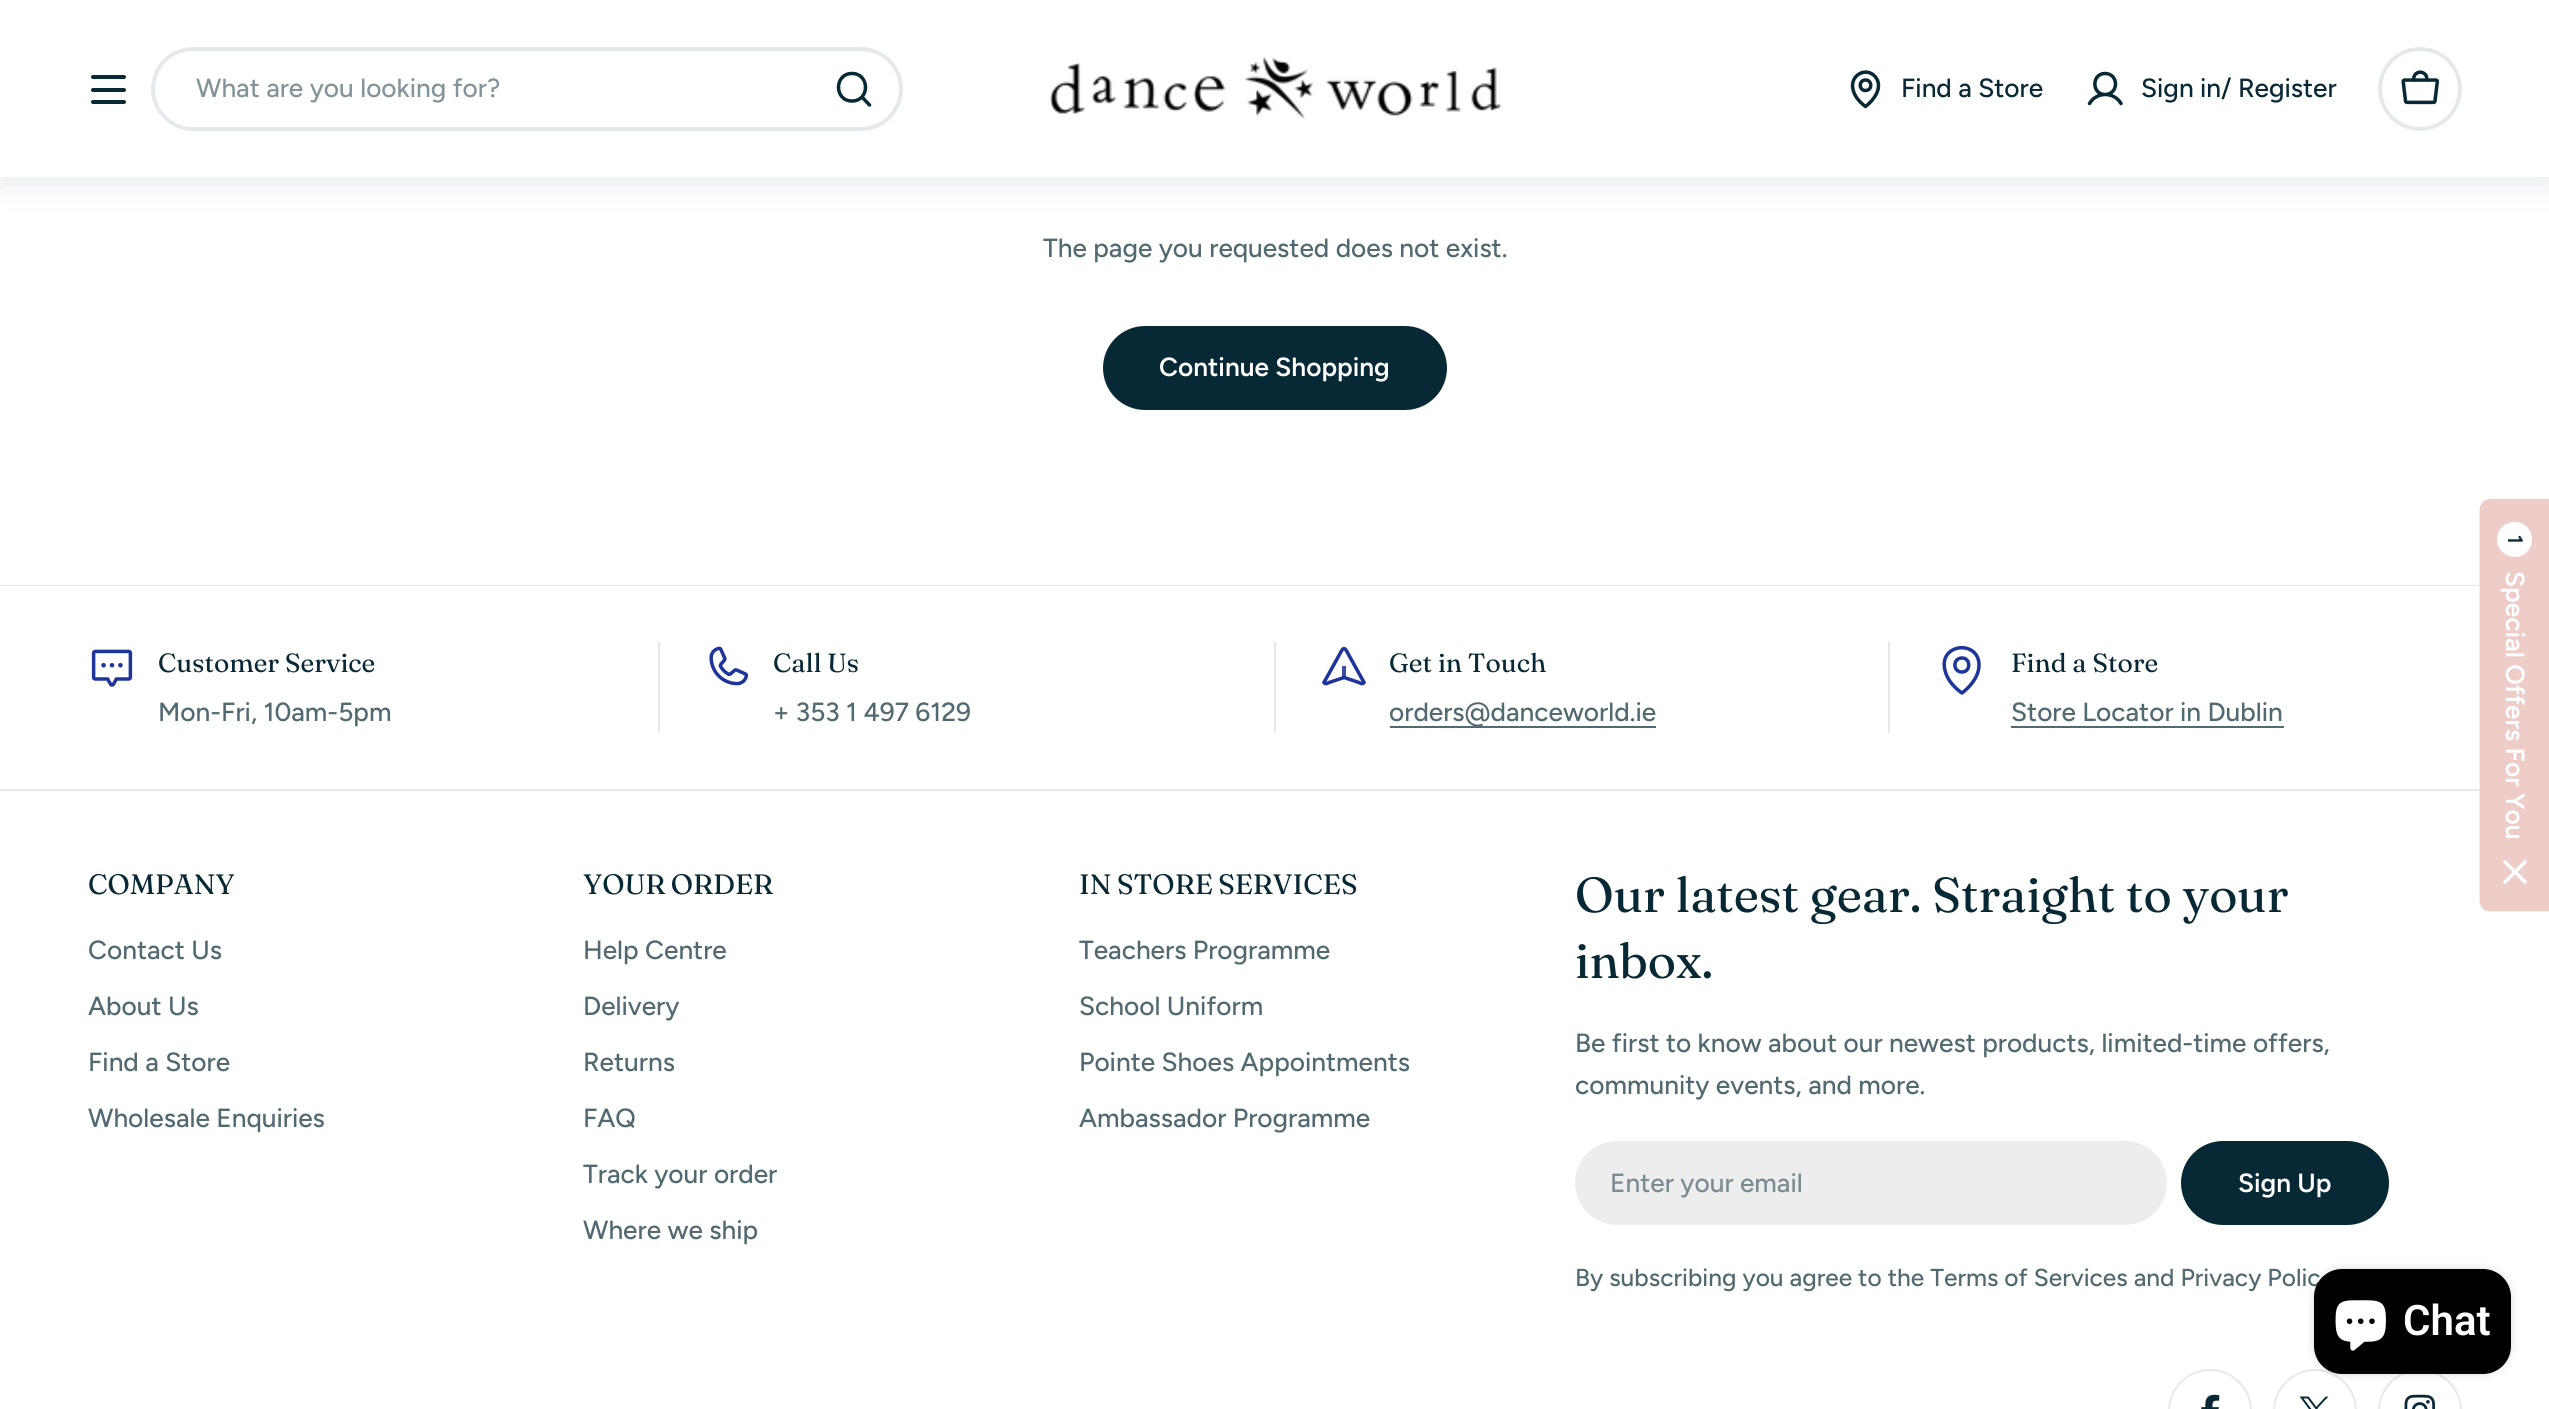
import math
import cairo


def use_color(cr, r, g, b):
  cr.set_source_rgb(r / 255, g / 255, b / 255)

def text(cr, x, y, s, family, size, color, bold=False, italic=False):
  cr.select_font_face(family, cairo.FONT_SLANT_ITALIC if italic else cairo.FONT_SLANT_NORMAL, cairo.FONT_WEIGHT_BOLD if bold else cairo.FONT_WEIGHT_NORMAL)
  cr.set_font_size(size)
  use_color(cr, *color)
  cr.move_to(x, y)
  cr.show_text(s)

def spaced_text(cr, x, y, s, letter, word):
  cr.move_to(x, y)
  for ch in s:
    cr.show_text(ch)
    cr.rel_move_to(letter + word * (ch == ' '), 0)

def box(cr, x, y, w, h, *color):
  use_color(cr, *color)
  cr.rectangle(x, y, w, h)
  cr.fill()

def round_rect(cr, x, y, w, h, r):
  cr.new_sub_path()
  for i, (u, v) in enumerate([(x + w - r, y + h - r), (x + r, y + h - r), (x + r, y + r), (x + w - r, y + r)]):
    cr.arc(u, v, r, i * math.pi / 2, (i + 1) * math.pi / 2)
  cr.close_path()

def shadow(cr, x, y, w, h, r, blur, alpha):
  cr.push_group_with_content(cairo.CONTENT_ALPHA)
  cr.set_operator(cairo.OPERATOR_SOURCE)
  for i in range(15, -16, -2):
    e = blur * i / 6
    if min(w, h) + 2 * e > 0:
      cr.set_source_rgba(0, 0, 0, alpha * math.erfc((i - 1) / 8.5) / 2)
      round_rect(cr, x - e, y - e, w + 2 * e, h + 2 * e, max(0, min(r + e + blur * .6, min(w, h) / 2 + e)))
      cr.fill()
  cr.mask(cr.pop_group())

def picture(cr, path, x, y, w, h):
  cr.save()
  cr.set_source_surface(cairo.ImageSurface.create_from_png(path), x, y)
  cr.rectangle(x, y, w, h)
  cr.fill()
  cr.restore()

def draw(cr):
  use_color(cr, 255, 255, 255)
  cr.paint()
  use_color(cr, 7, 40, 53)
  shadow(cr, 0, 7, 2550, 177, 0, 16, 0.1)
  box(cr, 0, 0, 2549, 177, 255, 255, 255)
  use_color(cr, 7, 40, 53)
  round_rect(cr, 91, 88, 35, 4, 2)
  cr.fill()
  round_rect(cr, 91, 75, 35, 4, 2)
  cr.fill()
  round_rect(cr, 91, 100, 35, 4, 2)
  cr.fill()
  round_rect(cr, 153, 49, 748, 80, 40)
  use_color(cr, 230, 233, 235)
  cr.set_line_width(4)
  cr.stroke()
  cr.new_path()
  cr.move_to(852, 101)
  cr.curve_to(870, 101, 870, 73.5, 852, 73.5)
  cr.curve_to(834, 73.5, 834, 101, 852, 101)
  cr.close_path()
  cr.move_to(862, 97)
  cr.line_to(869.5, 105)
  use_color(cr, 7, 40, 53)
  cr.set_line_width(3.5)
  cr.set_line_cap(cairo.LINE_CAP_ROUND)
  cr.set_line_join(cairo.LINE_JOIN_ROUND)
  cr.stroke()
  picture(cr, "img_01.png", 1049, 57, 453, 62)
  cr.new_path()
  cr.move_to(1865.5, 90.5)
  cr.curve_to(1872.5, 90.5, 1872.5, 80, 1865.5, 80)
  cr.curve_to(1858.5, 80, 1858.5, 90.5, 1865.5, 90.5)
  cr.close_path()
  cr.move_to(1878.5, 85.5)
  cr.curve_to(1878.5, 97, 1865.5, 106.5, 1865.5, 106.5)
  cr.curve_to(1860, 102.5, 1854.5, 96.5, 1853, 89.5)
  cr.curve_to(1849.5, 75, 1866.5, 66, 1875.5, 77)
  cr.curve_to(1877.5, 79.5, 1878.5, 82.5, 1878.5, 85.5)
  cr.close_path()
  cr.stroke()
  cr.new_path()
  cr.move_to(2105, 94.5)
  cr.curve_to(2119, 94.5, 2119, 73.5, 2105, 73.5)
  cr.curve_to(2091.5, 73.5, 2091.5, 94.5, 2105, 94.5)
  cr.close_path()
  cr.move_to(2089.5, 103.5)
  cr.curve_to(2096.5, 91.5, 2114, 91.5, 2121, 103.5)
  cr.stroke()
  cr.arc(2420, 89, 40, 0, 2 * math.pi)
  use_color(cr, 230, 233, 235)
  cr.set_line_width(4)
  cr.set_line_cap(cairo.LINE_CAP_BUTT)
  cr.set_line_join(cairo.LINE_JOIN_MITER)
  cr.stroke()
  picture(cr, "img_02.png", 2401, 70, 38, 35)
  use_color(cr, 7, 40, 53)
  round_rect(cr, 1104, 327, 342, 82, 41)
  cr.fill_preserve()
  cr.set_line_width(2)
  cr.stroke()
  box(cr, 0, 585, 2480, 1, 230, 233, 235)
  picture(cr, "img_03.png", 91, 649, 42, 38)
  box(cr, 658, 642, 2, 91, 230, 233, 235)
  picture(cr, "img_04.png", 709, 646, 40, 40)
  box(cr, 1274, 642, 2, 91, 230, 233, 235)
  box(cr, 1342, 666, 4, 12, 57, 77, 167)
  cr.new_path()
  cr.move_to(1344, 677.5)
  cr.line_to(1359, 682.5)
  cr.curve_to(1360, 683, 1362.5, 684.5, 1363.5, 683)
  cr.line_to(1364, 682.5)
  cr.line_to(1363.5, 681.5)
  cr.line_to(1348.5, 654.5)
  cr.curve_to(1348, 654, 1346, 648.5, 1344, 648.5)
  cr.curve_to(1342, 648.5, 1340, 654, 1339.5, 654.5)
  cr.line_to(1324.5, 681.5)
  cr.line_to(1324, 682.5)
  cr.line_to(1324.5, 683)
  cr.curve_to(1325.5, 684.5, 1328, 683, 1329, 682.5)
  cr.close_path()
  use_color(cr, 29, 52, 154)
  cr.set_line_width(3.5)
  cr.stroke()
  box(cr, 1390, 726, 266, 2, 81, 105, 113)
  box(cr, 1888, 642, 2, 91, 230, 233, 235)
  cr.new_path()
  cr.move_to(1962, 672)
  cr.curve_to(1971, 672, 1971, 658, 1962, 658)
  cr.curve_to(1952.5, 658, 1952.5, 672, 1962, 672)
  cr.close_path()
  cr.move_to(1979, 665)
  cr.curve_to(1979, 681, 1962, 693, 1962, 693)
  cr.curve_to(1954.5, 688, 1947, 679.5, 1945, 670.5)
  cr.curve_to(1938, 643, 1979, 639.5, 1979, 665)
  cr.close_path()
  use_color(cr, 29, 52, 154)
  cr.set_line_cap(cairo.LINE_CAP_ROUND)
  cr.set_line_join(cairo.LINE_JOIN_ROUND)
  cr.stroke()
  box(cr, 2011, 726, 273, 2, 81, 105, 113)
  box(cr, 0, 789, 2480, 2, 230, 233, 235)
  use_color(cr, 237, 237, 237)
  round_rect(cr, 1575, 1141, 592, 84, 42)
  cr.fill()
  use_color(cr, 7, 40, 53)
  round_rect(cr, 2182, 1142, 206, 82, 41)
  cr.fill_preserve()
  cr.set_line_width(2)
  cr.set_line_cap(cairo.LINE_CAP_BUTT)
  cr.set_line_join(cairo.LINE_JOIN_MITER)
  cr.stroke()
  cr.arc(2210, 1411, 41, 0, 2 * math.pi)
  use_color(cr, 230, 233, 235)
  cr.stroke()
  picture(cr, "img_05.png", 2201, 1394, 19, 15)
  cr.arc(2315, 1411, 41, 0, 2 * math.pi)
  cr.stroke()
  picture(cr, "img_06.png", 2299, 1396, 30, 13)
  cr.arc(2420, 1411, 41, 0, 2 * math.pi)
  cr.stroke()
  picture(cr, "img_07.png", 2404, 1394, 31, 15)
  use_color(cr, 238, 204, 200)
  cr.new_path()
  cr.move_to(2480, 901)
  cr.line_to(2480, 510)
  cr.curve_to(2480, 504, 2484, 499, 2490, 499)
  cr.line_to(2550, 499)
  cr.line_to(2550, 911)
  cr.line_to(2490, 911)
  cr.curve_to(2484, 911, 2480, 907, 2480, 901)
  cr.close_path()
  cr.fill()
  cr.new_path()
  cr.move_to(2480.5, 901)
  cr.line_to(2480.5, 509.5)
  cr.curve_to(2480.5, 504.5, 2485, 500, 2490, 500)
  cr.line_to(2549, 500)
  cr.line_to(2549, 910.5)
  cr.line_to(2490, 910.5)
  cr.curve_to(2485, 910.5, 2480.5, 906, 2480.5, 901)
  cr.close_path()
  cr.set_line_width(1.8)
  cr.stroke()
  use_color(cr, 255, 255, 255)
  cr.new_path()
  cr.move_to(2532, 539.5)
  cr.curve_to(2532, 549, 2524.5, 557, 2515, 557)
  cr.curve_to(2505, 557, 2497, 549, 2497, 539.5)
  cr.curve_to(2497, 529.5, 2505, 522, 2515, 522)
  cr.curve_to(2524.5, 522, 2532, 529.5, 2532, 539.5)
  cr.close_path()
  cr.fill()
  cr.new_path()
  cr.move_to(2525, 882)
  cr.line_to(2505, 862)
  cr.move_to(2505, 882)
  cr.line_to(2525, 862)
  cr.set_line_width(3.5)
  cr.set_line_cap(cairo.LINE_CAP_ROUND)
  cr.set_line_join(cairo.LINE_JOIN_ROUND)
  cr.stroke()
  use_color(cr, 0, 0, 0)
  shadow(cr, 2314, 1269, 197, 105, 28, 4.5, 0.15)
  text(cr, 196, 97, "What are you looking for?", "Figtree Medium", 26.25, (131, 148, 154))
  text(cr, 1901, 97, "Find a Store", "Figtree Medium", 26.25, (7, 40, 53))
  text(cr, 2141, 97, "Sign in/ Register", "Figtree Medium", 26.25, (7, 40, 53))
  text(cr, 1043, 257, "The page you requested does not exist.", "Figtree Medium", 26.25, (81, 105, 113))
  text(cr, 1159, 376, "Continue Shopping", "Figtree SemiBold", 26.25, (255, 255, 255))
  text(cr, 158, 672, "Customer Service", "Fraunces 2", 26.25, (7, 40, 53))
  text(cr, 158, 721, "Mon-Fri, 10am-5pm", "Figtree Medium", 26.25, (81, 105, 113))
  text(cr, 773, 672, "Call Us", "Fraunces 2", 26.25, (7, 40, 53))
  text(cr, 773, 721, "+ 353 1 497 6129", "Figtree Medium", 26.25, (81, 105, 113))
  text(cr, 1389, 672, "Get in Touch", "Fraunces 2", 26.25, (7, 40, 53))
  text(cr, 1389, 721, "orders@danceworld.ie", "Figtree Medium", 26.25, (81, 105, 113))
  text(cr, 2011, 672, "Find a Store", "Fraunces 2", 26.25, (7, 40, 53))
  text(cr, 2011, 721, "Store Locator in Dublin", "Figtree Medium", 26.25, (81, 105, 113))
  text(cr, 88, 894, "COMPANY", "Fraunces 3", 28, (7, 40, 53))
  text(cr, 88, 959, "Contact Us", "Figtree Medium", 26.25, (81, 105, 113))
  text(cr, 88, 1015, "About Us", "Figtree Medium", 26.25, (81, 105, 113))
  text(cr, 88, 1071, "Find a Store", "Figtree Medium", 26.25, (81, 105, 113))
  text(cr, 88, 1127, "Wholesale Enquiries", "Figtree Medium", 26.25, (81, 105, 113))
  cr.select_font_face("Fraunces 3")
  cr.set_font_size(28)
  use_color(cr, 7, 40, 53)
  spaced_text(cr, 583, 894, "YOUR ORDER", 0, -1)
  text(cr, 583, 959, "Help Centre", "Figtree Medium", 26.25, (81, 105, 113))
  text(cr, 583, 1015, "Delivery", "Figtree Medium", 26.25, (81, 105, 113))
  text(cr, 583, 1071, "Returns", "Figtree Medium", 26.25, (81, 105, 113))
  text(cr, 583, 1127, "FAQ", "Figtree Medium", 26.25, (81, 105, 113))
  text(cr, 583, 1183, "Track your order", "Figtree Medium", 26.25, (81, 105, 113))
  text(cr, 583, 1239, "Where we ship", "Figtree Medium", 26.25, (81, 105, 113))
  cr.select_font_face("Fraunces 3")
  cr.set_font_size(28)
  use_color(cr, 7, 40, 53)
  spaced_text(cr, 1079, 894, "IN STORE SERVICES", 0, -1)
  text(cr, 1079, 959, "Teachers Programme", "Figtree Medium", 26.25, (81, 105, 113))
  text(cr, 1079, 1015, "School Uniform", "Figtree Medium", 26.25, (81, 105, 113))
  text(cr, 1079, 1071, "Pointe Shoes Appointments", "Figtree Medium", 26.25, (81, 105, 113))
  text(cr, 1079, 1127, "Ambassador Programme", "Figtree Medium", 26.25, (81, 105, 113))
  text(cr, 1575, 912, "Our latest gear. Straight to your", "Fraunces", 49, (7, 40, 53))
  text(cr, 1575, 978, "inbox.", "Fraunces", 49, (7, 40, 53))
  text(cr, 1575, 1052, "Be first to know about our newest products, limited-time offers,", "Figtree Medium", 26.25, (81, 105, 113))
  text(cr, 1575, 1094, "community events, and more.", "Figtree Medium", 26.25, (81, 105, 113))
  text(cr, 1610, 1192, "Enter your email", "Figtree Medium", 26.25, (122, 139, 145))
  text(cr, 2238, 1192, "Sign Up", "Figtree SemiBold", 26.25, (255, 255, 255))
  text(cr, 1575, 1286, "By subscribing you agree to the Terms of Services and Privacy Polic", "Figtree Medium", 24.5, (81, 105, 113))
  cr.save()
  cr.translate(2508, 535)
  cr.rotate(90 * math.pi / 180)
  text(cr, 0, 0, "1", "Figtree SemiBold", 21, (7, 40, 53))
  cr.restore()
  cr.save()
  cr.translate(2506, 571)
  cr.rotate(90 * math.pi / 180)
  text(cr, 0, 0, "Special Offers For You", "Figtree SemiBold", 26.25, (255, 255, 255))
  cr.restore()
  use_color(cr, 0, 0, 0)
  round_rect(cr, 2314, 1269, 197, 105, 28)
  cr.fill()
  picture(cr, "img_08.png", 2335, 1300, 51, 51)
  text(cr, 2403, 1335, "Chat", "Roboto SemiBold", 42, (255, 255, 255))


surface = cairo.ImageSurface(cairo.FORMAT_RGB24, 2549, 1409)
cr = cairo.Context(surface)
options = cairo.FontOptions()
options.set_hint_metrics(cairo.HINT_METRICS_OFF)
options.set_hint_style(cairo.HINT_STYLE_NONE)
cr.set_font_options(options)
cr.set_miter_limit(4)
draw(cr)
surface.write_to_png("out.png")
